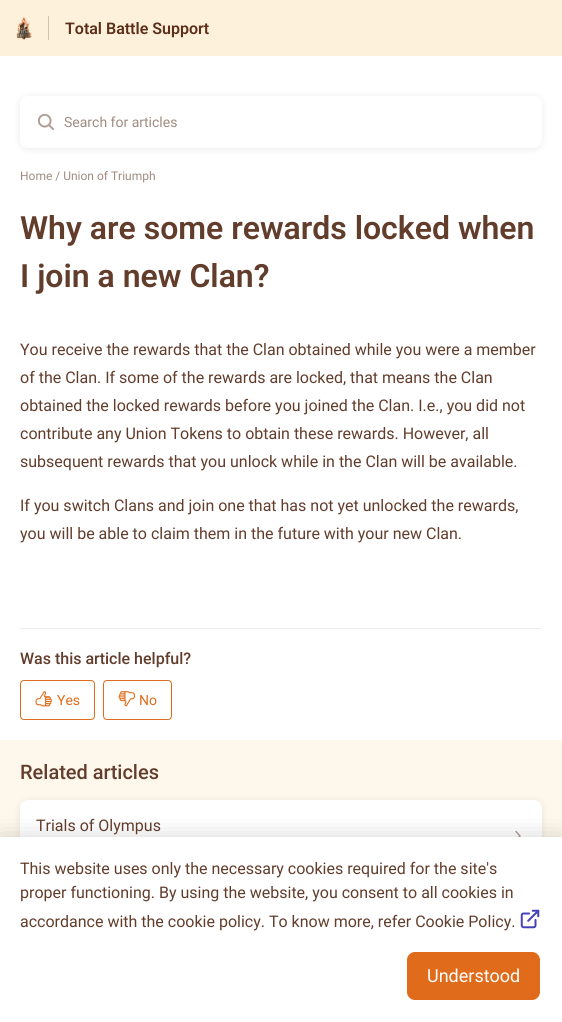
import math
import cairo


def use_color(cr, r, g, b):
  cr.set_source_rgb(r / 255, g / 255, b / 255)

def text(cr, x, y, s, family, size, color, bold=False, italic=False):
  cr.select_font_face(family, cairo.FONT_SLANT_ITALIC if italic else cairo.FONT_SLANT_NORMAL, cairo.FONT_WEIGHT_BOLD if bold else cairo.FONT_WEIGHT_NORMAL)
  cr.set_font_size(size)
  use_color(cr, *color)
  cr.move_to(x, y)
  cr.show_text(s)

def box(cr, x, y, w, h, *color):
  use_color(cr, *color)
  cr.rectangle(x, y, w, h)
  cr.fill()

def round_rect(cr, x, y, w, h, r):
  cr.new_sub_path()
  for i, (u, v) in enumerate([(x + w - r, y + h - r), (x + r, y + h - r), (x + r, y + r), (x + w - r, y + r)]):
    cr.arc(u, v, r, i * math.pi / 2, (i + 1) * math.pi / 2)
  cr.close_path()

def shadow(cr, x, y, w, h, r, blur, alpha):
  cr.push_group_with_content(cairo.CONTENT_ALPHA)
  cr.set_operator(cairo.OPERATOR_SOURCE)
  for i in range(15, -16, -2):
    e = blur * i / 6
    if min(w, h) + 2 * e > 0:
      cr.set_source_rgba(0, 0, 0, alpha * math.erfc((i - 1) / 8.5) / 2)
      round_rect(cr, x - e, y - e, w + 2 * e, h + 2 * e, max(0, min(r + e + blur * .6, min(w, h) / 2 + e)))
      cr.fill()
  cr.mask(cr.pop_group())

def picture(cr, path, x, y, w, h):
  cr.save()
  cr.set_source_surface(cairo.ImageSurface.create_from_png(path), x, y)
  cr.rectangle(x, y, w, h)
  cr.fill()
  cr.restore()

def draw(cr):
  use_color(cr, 254, 247, 235)
  cr.paint()
  box(cr, 0, 0, 562, 56, 254, 241, 220)
  box(cr, 48, 16, 1, 24, 213, 193, 172)
  picture(cr, "img_01.png", 16, 17, 16, 23)
  box(cr, 0, 56, 562, 684, 255, 255, 255)
  use_color(cr, 0, 0, 0)
  shadow(cr, 20, 97, 522, 52, 8, 4, 0.08)
  use_color(cr, 255, 255, 255)
  round_rect(cr, 20, 96, 522, 52, 8)
  cr.fill()
  picture(cr, "img_02.png", 37, 113, 17, 17)
  box(cr, 20, 628, 522, 1, 239, 236, 234)
  round_rect(cr, 20.5, 680.5, 74, 39, 3.5)
  use_color(cr, 224, 107, 26)
  cr.set_line_width(1)
  cr.stroke()
  picture(cr, "img_03.png", 35, 691, 17, 16)
  round_rect(cr, 103.5, 680.5, 68, 39, 3.5)
  cr.stroke()
  picture(cr, "img_04.png", 118, 691, 17, 16)
  use_color(cr, 0, 0, 0)
  shadow(cr, 20, 801, 522, 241, 8, 4, 0.08)
  use_color(cr, 255, 255, 255)
  cr.new_path()
  cr.move_to(28, 800)
  cr.line_to(534, 800)
  cr.curve_to(538.5, 800, 542, 803.5, 542, 808)
  cr.line_to(542, 1022)
  cr.line_to(20, 1022)
  cr.line_to(20, 808)
  cr.curve_to(20, 803.5, 23.5, 800, 28, 800)
  cr.close_path()
  cr.fill()
  cr.new_path()
  cr.move_to(516, 831.5)
  cr.line_to(520, 836)
  cr.line_to(516, 840.5)
  use_color(cr, 177, 158, 150)
  cr.set_line_width(1.5)
  cr.set_line_cap(cairo.LINE_CAP_ROUND)
  cr.set_line_join(cairo.LINE_JOIN_ROUND)
  cr.stroke()
  use_color(cr, 0, 0, 0)
  shadow(cr, 0, 837, 562, 185, 0, 12, 0.16)
  box(cr, 0, 837, 562, 185, 255, 255, 255)
  picture(cr, "img_05.png", 520, 909, 20, 20)
  use_color(cr, 224, 107, 26)
  round_rect(cr, 407, 952, 133, 48, 8)
  cr.fill()
  text(cr, 65, 34, "Total Battle Support", "Roboto SemiBold", 16, (91, 47, 26))
  text(cr, 64, 127, "Search for articles", "Roboto", 14, (161, 139, 128))
  text(cr, 20, 180, "Home / Union of Triumph", "Roboto", 12, (161, 139, 128))
  text(cr, 20, 239, "Why are some rewards locked when", "Roboto SemiBold", 32, (98, 61, 44))
  text(cr, 20, 287, "I join a new Clan?", "Roboto SemiBold", 32, (98, 61, 44))
  text(cr, 20, 355, "You receive the rewards that the Clan obtained while you were a member", "Roboto", 16, (98, 61, 44))
  text(cr, 20, 383, "of the Clan. If some of the rewards are locked, that means the Clan", "Roboto", 16, (98, 61, 44))
  text(cr, 20, 411, "obtained the locked rewards before you joined the Clan. I.e., you did not", "Roboto", 16, (98, 61, 44))
  text(cr, 20, 439, "contribute any Union Tokens to obtain these rewards. However, all", "Roboto", 16, (98, 61, 44))
  text(cr, 20, 467, "subsequent rewards that you unlock while in the Clan will be available.", "Roboto", 16, (98, 61, 44))
  text(cr, 20, 511, "If you switch Clans and join one that has not yet unlocked the rewards,", "Roboto", 16, (98, 61, 44))
  text(cr, 20, 539, "you will be able to claim them in the future with your new Clan.", "Roboto", 16, (98, 61, 44))
  text(cr, 20, 664, "Was this article helpful?", "Roboto Medium", 16, (98, 61, 44))
  text(cr, 57, 705, "Yes", "Roboto", 14, (224, 107, 26))
  text(cr, 139, 705, "No", "Roboto", 14, (224, 107, 26))
  text(cr, 20, 779, "Related articles", "Roboto Medium", 20, (98, 61, 44))
  text(cr, 36, 831, "Trials of Olympus", "Roboto", 16, (98, 61, 44))
  text(cr, 20, 874, "This website uses only the necessary cookies required for the site's", "Roboto", 16, (98, 61, 44))
  text(cr, 20, 898, "proper functioning. By using the website, you consent to all cookies in", "Roboto", 16, (98, 61, 44))
  text(cr, 20, 927, "accordance with the cookie policy. To know more, refer Cookie Policy.", "Roboto", 16, (98, 61, 44))
  text(cr, 427, 982, "Understood", "Roboto", 18, (255, 255, 255))


surface = cairo.ImageSurface(cairo.FORMAT_RGB24, 562, 1022)
cr = cairo.Context(surface)
options = cairo.FontOptions()
options.set_hint_metrics(cairo.HINT_METRICS_OFF)
options.set_hint_style(cairo.HINT_STYLE_NONE)
cr.set_font_options(options)
cr.set_miter_limit(4)
draw(cr)
surface.write_to_png("out.png")
